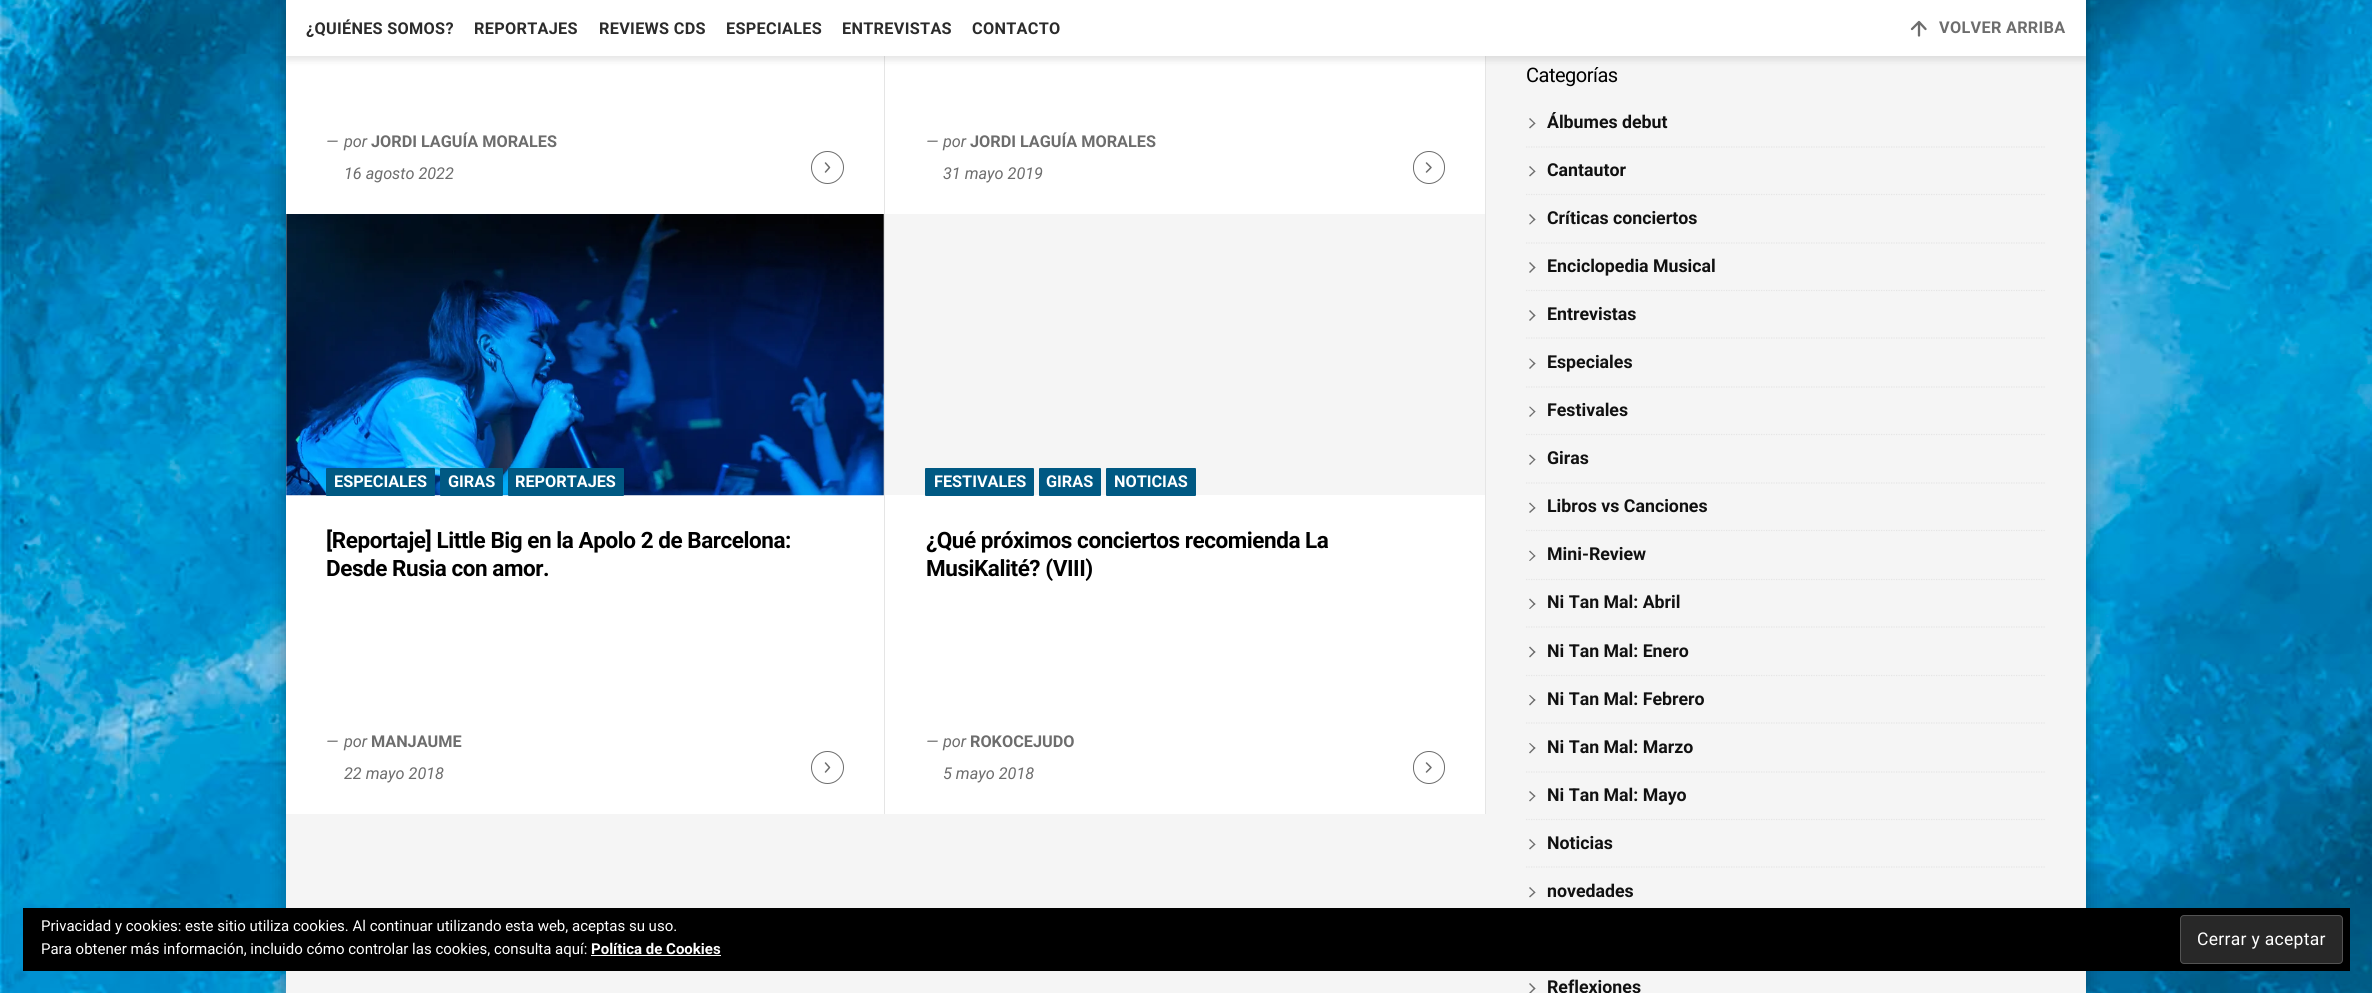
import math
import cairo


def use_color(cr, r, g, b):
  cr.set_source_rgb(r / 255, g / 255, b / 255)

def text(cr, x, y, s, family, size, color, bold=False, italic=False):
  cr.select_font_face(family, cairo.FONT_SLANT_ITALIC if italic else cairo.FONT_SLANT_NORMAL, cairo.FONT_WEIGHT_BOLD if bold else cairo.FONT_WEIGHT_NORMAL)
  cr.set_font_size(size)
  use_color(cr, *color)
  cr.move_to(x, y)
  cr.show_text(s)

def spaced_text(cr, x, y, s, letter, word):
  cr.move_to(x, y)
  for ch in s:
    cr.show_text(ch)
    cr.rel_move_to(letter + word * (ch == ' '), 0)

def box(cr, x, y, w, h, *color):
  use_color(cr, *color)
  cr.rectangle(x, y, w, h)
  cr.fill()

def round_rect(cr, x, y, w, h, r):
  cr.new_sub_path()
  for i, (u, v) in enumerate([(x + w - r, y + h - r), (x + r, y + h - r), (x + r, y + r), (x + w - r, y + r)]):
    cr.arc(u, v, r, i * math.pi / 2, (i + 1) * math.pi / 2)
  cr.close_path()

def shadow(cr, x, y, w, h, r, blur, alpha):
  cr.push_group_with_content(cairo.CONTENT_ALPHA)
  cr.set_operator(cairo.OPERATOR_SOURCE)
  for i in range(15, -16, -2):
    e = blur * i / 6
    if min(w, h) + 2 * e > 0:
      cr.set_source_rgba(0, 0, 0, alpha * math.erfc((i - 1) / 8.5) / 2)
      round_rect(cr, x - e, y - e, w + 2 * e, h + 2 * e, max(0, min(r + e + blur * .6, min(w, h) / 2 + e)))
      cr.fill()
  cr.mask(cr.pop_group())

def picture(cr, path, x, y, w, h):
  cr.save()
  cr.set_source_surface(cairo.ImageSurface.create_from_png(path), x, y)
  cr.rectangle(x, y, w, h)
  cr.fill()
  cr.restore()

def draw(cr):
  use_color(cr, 255, 255, 255)
  cr.paint()
  picture(cr, "img_01.png", 0, 0, 2372, 993)
  use_color(cr, 0, 0, 0)
  shadow(cr, 286, -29, 1800, 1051, 0, 9.5, 0.3)
  box(cr, 286, 56, 1800, 937, 245, 245, 245)
  box(cr, 286, 56, 1199, 758, 255, 255, 255)
  box(cr, 1485, 56, 1, 758, 229, 229, 229)
  box(cr, 884, 56, 1, 758, 229, 229, 229)
  use_color(cr, 0, 0, 0)
  shadow(cr, 286, 1, 1800, 57, 0, 4.5, 0.07)
  shadow(cr, 286, 5, 1800, 56, 0, 3, 0.05)
  box(cr, 286, 0, 1800, 56, 255, 255, 255)
  cr.new_path()
  cr.move_to(1919, 35.5)
  cr.line_to(1919, 22)
  cr.move_to(1912, 29)
  cr.line_to(1919, 22)
  cr.line_to(1925.5, 29)
  use_color(cr, 109, 109, 109)
  cr.set_line_width(2.3)
  cr.set_line_cap(cairo.LINE_CAP_ROUND)
  cr.set_line_join(cairo.LINE_JOIN_ROUND)
  cr.stroke()
  cr.arc(827.5, 167.5, 16, 0, 2 * math.pi)
  cr.set_line_width(1)
  cr.set_line_cap(cairo.LINE_CAP_BUTT)
  cr.set_line_join(cairo.LINE_JOIN_MITER)
  cr.stroke()
  cr.new_path()
  cr.move_to(825.5, 172)
  cr.line_to(829.5, 167.5)
  cr.line_to(825.5, 163)
  cr.set_line_width(1.5)
  cr.set_line_cap(cairo.LINE_CAP_ROUND)
  cr.set_line_join(cairo.LINE_JOIN_ROUND)
  cr.stroke()
  round_rect(cr, 1413.5, 151.5, 31, 32, 15.5)
  cr.set_line_width(1)
  cr.set_line_cap(cairo.LINE_CAP_BUTT)
  cr.set_line_join(cairo.LINE_JOIN_MITER)
  cr.stroke()
  cr.new_path()
  cr.move_to(1426.5, 172)
  cr.line_to(1431, 167.5)
  cr.line_to(1426.5, 163)
  cr.set_line_width(1.5)
  cr.set_line_cap(cairo.LINE_CAP_ROUND)
  cr.set_line_join(cairo.LINE_JOIN_ROUND)
  cr.stroke()
  picture(cr, "img_02.png", 286, 214, 598, 282)
  use_color(cr, 0, 89, 131)
  round_rect(cr, 326, 468, 109, 28, 1)
  cr.fill()
  round_rect(cr, 440, 468, 63, 28, 1)
  cr.fill()
  round_rect(cr, 508, 468, 116, 28, 1)
  cr.fill()
  cr.arc(827.5, 767.5, 16, 0, 2 * math.pi)
  use_color(cr, 109, 109, 109)
  cr.set_line_width(1)
  cr.set_line_cap(cairo.LINE_CAP_BUTT)
  cr.set_line_join(cairo.LINE_JOIN_MITER)
  cr.stroke()
  cr.new_path()
  cr.move_to(825.5, 772)
  cr.line_to(829.5, 767.5)
  cr.line_to(825.5, 763)
  cr.set_line_width(1.5)
  cr.set_line_cap(cairo.LINE_CAP_ROUND)
  cr.set_line_join(cairo.LINE_JOIN_ROUND)
  cr.stroke()
  box(cr, 885, 214, 600, 281, 245, 245, 245)
  use_color(cr, 0, 89, 131)
  round_rect(cr, 925, 468, 109, 28, 1)
  cr.fill()
  round_rect(cr, 1039, 468, 62, 28, 1)
  cr.fill()
  round_rect(cr, 1106, 468, 90, 28, 1)
  cr.fill()
  round_rect(cr, 1413.5, 751.5, 31, 32, 15.5)
  use_color(cr, 109, 109, 109)
  cr.set_line_width(1)
  cr.set_line_cap(cairo.LINE_CAP_BUTT)
  cr.set_line_join(cairo.LINE_JOIN_MITER)
  cr.stroke()
  cr.new_path()
  cr.move_to(1426.5, 772)
  cr.line_to(1431, 767.5)
  cr.line_to(1426.5, 763)
  cr.set_line_width(1.5)
  cr.set_line_cap(cairo.LINE_CAP_ROUND)
  cr.set_line_join(cairo.LINE_JOIN_ROUND)
  cr.stroke()
  cr.new_path()
  cr.move_to(1529, 119)
  cr.line_to(1530, 118)
  cr.line_to(1535.5, 123.5)
  cr.line_to(1534.5, 124)
  cr.close_path()
  cr.fill()
  cr.new_path()
  cr.move_to(1529, 127.5)
  cr.line_to(1534.5, 122.5)
  cr.line_to(1535.5, 123.5)
  cr.line_to(1530, 128.5)
  cr.close_path()
  cr.fill()
  cr.new_path()
  cr.move_to(1526, 147)
  cr.line_to(2046, 147)
  use_color(cr, 229, 229, 229)
  cr.set_line_width(1.2)
  cr.set_line_cap(cairo.LINE_CAP_BUTT)
  cr.set_line_join(cairo.LINE_JOIN_MITER)
  cr.set_dash([1.25, 1.25])
  cr.stroke()
  use_color(cr, 109, 109, 109)
  cr.new_path()
  cr.move_to(1529, 167)
  cr.line_to(1530, 166)
  cr.line_to(1535.5, 171.5)
  cr.line_to(1534.5, 172)
  cr.close_path()
  cr.fill()
  cr.new_path()
  cr.move_to(1529, 175.5)
  cr.line_to(1534.5, 170.5)
  cr.line_to(1535.5, 171.5)
  cr.line_to(1530, 176.5)
  cr.close_path()
  cr.fill()
  cr.new_path()
  cr.move_to(1526, 194.5)
  cr.line_to(2046, 194.5)
  use_color(cr, 229, 229, 229)
  cr.stroke()
  use_color(cr, 109, 109, 109)
  cr.new_path()
  cr.move_to(1529, 215)
  cr.line_to(1530, 214)
  cr.line_to(1535.5, 219.5)
  cr.line_to(1534.5, 220.5)
  cr.close_path()
  cr.fill()
  cr.new_path()
  cr.move_to(1529, 224)
  cr.line_to(1534.5, 218.5)
  cr.line_to(1535.5, 219.5)
  cr.line_to(1530, 224.5)
  cr.close_path()
  cr.fill()
  cr.new_path()
  cr.move_to(1526, 243)
  cr.line_to(2046, 243)
  use_color(cr, 229, 229, 229)
  cr.stroke()
  use_color(cr, 109, 109, 109)
  cr.new_path()
  cr.move_to(1529, 263)
  cr.line_to(1530, 262)
  cr.line_to(1535.5, 267.5)
  cr.line_to(1534.5, 268.5)
  cr.close_path()
  cr.fill()
  cr.new_path()
  cr.move_to(1529, 272)
  cr.line_to(1534.5, 266.5)
  cr.line_to(1535.5, 267.5)
  cr.line_to(1530, 273)
  cr.close_path()
  cr.fill()
  cr.new_path()
  cr.move_to(1526, 290.5)
  cr.line_to(2046, 290.5)
  use_color(cr, 229, 229, 229)
  cr.stroke()
  use_color(cr, 109, 109, 109)
  cr.new_path()
  cr.move_to(1529, 311)
  cr.line_to(1530, 310)
  cr.line_to(1535.5, 315.5)
  cr.line_to(1534.5, 316.5)
  cr.close_path()
  cr.fill()
  cr.new_path()
  cr.move_to(1529, 320)
  cr.line_to(1534.5, 314.5)
  cr.line_to(1535.5, 315.5)
  cr.line_to(1530, 321)
  cr.close_path()
  cr.fill()
  cr.new_path()
  cr.move_to(1526, 338)
  cr.line_to(2046, 338)
  use_color(cr, 229, 229, 229)
  cr.stroke()
  use_color(cr, 109, 109, 109)
  cr.new_path()
  cr.move_to(1529, 359)
  cr.line_to(1530, 358.5)
  cr.line_to(1535.5, 363.5)
  cr.line_to(1534.5, 364.5)
  cr.close_path()
  cr.fill()
  cr.new_path()
  cr.move_to(1529, 368)
  cr.line_to(1534.5, 362.5)
  cr.line_to(1535.5, 363.5)
  cr.line_to(1530, 369)
  cr.close_path()
  cr.fill()
  cr.new_path()
  cr.move_to(1526, 387)
  cr.line_to(2046, 387)
  use_color(cr, 229, 229, 229)
  cr.stroke()
  use_color(cr, 109, 109, 109)
  cr.new_path()
  cr.move_to(1529, 407)
  cr.line_to(1530, 406.5)
  cr.line_to(1535.5, 411.5)
  cr.line_to(1534.5, 412.5)
  cr.close_path()
  cr.fill()
  cr.new_path()
  cr.move_to(1529, 416)
  cr.line_to(1534.5, 411)
  cr.line_to(1535.5, 411.5)
  cr.line_to(1530, 417)
  cr.close_path()
  cr.fill()
  cr.new_path()
  cr.move_to(1526, 434.5)
  cr.line_to(2046, 434.5)
  use_color(cr, 229, 229, 229)
  cr.stroke()
  use_color(cr, 109, 109, 109)
  cr.new_path()
  cr.move_to(1529, 455.5)
  cr.line_to(1530, 454.5)
  cr.line_to(1535.5, 459.5)
  cr.line_to(1534.5, 460.5)
  cr.close_path()
  cr.fill()
  cr.new_path()
  cr.move_to(1529, 464)
  cr.line_to(1534.5, 459)
  cr.line_to(1535.5, 459.5)
  cr.line_to(1530, 465)
  cr.close_path()
  cr.fill()
  cr.new_path()
  cr.move_to(1526, 483)
  cr.line_to(2046, 483)
  use_color(cr, 229, 229, 229)
  cr.stroke()
  use_color(cr, 109, 109, 109)
  cr.new_path()
  cr.move_to(1529, 503.5)
  cr.line_to(1530, 502.5)
  cr.line_to(1535.5, 508)
  cr.line_to(1534.5, 508.5)
  cr.close_path()
  cr.fill()
  cr.new_path()
  cr.move_to(1529, 512)
  cr.line_to(1534.5, 507)
  cr.line_to(1535.5, 508)
  cr.line_to(1530, 513)
  cr.close_path()
  cr.fill()
  cr.new_path()
  cr.move_to(1526, 530.5)
  cr.line_to(2046, 530.5)
  use_color(cr, 229, 229, 229)
  cr.stroke()
  use_color(cr, 109, 109, 109)
  cr.new_path()
  cr.move_to(1529, 551.5)
  cr.line_to(1530, 550.5)
  cr.line_to(1535.5, 556)
  cr.line_to(1534.5, 556.5)
  cr.close_path()
  cr.fill()
  cr.new_path()
  cr.move_to(1529, 560.5)
  cr.line_to(1534.5, 555)
  cr.line_to(1535.5, 556)
  cr.line_to(1530, 561)
  cr.close_path()
  cr.fill()
  cr.new_path()
  cr.move_to(1526, 579.5)
  cr.line_to(2046, 579.5)
  use_color(cr, 229, 229, 229)
  cr.stroke()
  use_color(cr, 109, 109, 109)
  cr.new_path()
  cr.move_to(1529, 599.5)
  cr.line_to(1530, 598.5)
  cr.line_to(1535.5, 604)
  cr.line_to(1534.5, 605)
  cr.close_path()
  cr.fill()
  cr.new_path()
  cr.move_to(1529, 608.5)
  cr.line_to(1534.5, 603)
  cr.line_to(1535.5, 604)
  cr.line_to(1530, 609)
  cr.close_path()
  cr.fill()
  cr.new_path()
  cr.move_to(1526, 627)
  cr.line_to(2046, 627)
  use_color(cr, 229, 229, 229)
  cr.stroke()
  use_color(cr, 109, 109, 109)
  cr.new_path()
  cr.move_to(1529, 647.5)
  cr.line_to(1530, 646.5)
  cr.line_to(1535.5, 652)
  cr.line_to(1534.5, 653)
  cr.close_path()
  cr.fill()
  cr.new_path()
  cr.move_to(1529, 656.5)
  cr.line_to(1534.5, 651)
  cr.line_to(1535.5, 652)
  cr.line_to(1530, 657.5)
  cr.close_path()
  cr.fill()
  cr.new_path()
  cr.move_to(1526, 675.5)
  cr.line_to(2046, 675.5)
  use_color(cr, 229, 229, 229)
  cr.stroke()
  use_color(cr, 109, 109, 109)
  cr.new_path()
  cr.move_to(1529, 695.5)
  cr.line_to(1530, 695)
  cr.line_to(1535.5, 700)
  cr.line_to(1534.5, 701)
  cr.close_path()
  cr.fill()
  cr.new_path()
  cr.move_to(1529, 704.5)
  cr.line_to(1534.5, 699)
  cr.line_to(1535.5, 700)
  cr.line_to(1530, 705.5)
  cr.close_path()
  cr.fill()
  cr.new_path()
  cr.move_to(1526, 723)
  cr.line_to(2046, 723)
  use_color(cr, 229, 229, 229)
  cr.stroke()
  use_color(cr, 109, 109, 109)
  cr.new_path()
  cr.move_to(1529, 743.5)
  cr.line_to(1530, 743)
  cr.line_to(1535.5, 748)
  cr.line_to(1534.5, 749)
  cr.close_path()
  cr.fill()
  cr.new_path()
  cr.move_to(1529, 752.5)
  cr.line_to(1534.5, 747)
  cr.line_to(1535.5, 748)
  cr.line_to(1530, 753.5)
  cr.close_path()
  cr.fill()
  cr.new_path()
  cr.move_to(1526, 772)
  cr.line_to(2046, 772)
  use_color(cr, 229, 229, 229)
  cr.stroke()
  use_color(cr, 109, 109, 109)
  cr.new_path()
  cr.move_to(1529, 792)
  cr.line_to(1530, 791)
  cr.line_to(1535.5, 796)
  cr.line_to(1534.5, 797)
  cr.close_path()
  cr.fill()
  cr.new_path()
  cr.move_to(1529, 800.5)
  cr.line_to(1534.5, 795.5)
  cr.line_to(1535.5, 796)
  cr.line_to(1530, 801.5)
  cr.close_path()
  cr.fill()
  cr.new_path()
  cr.move_to(1526, 819.5)
  cr.line_to(2046, 819.5)
  use_color(cr, 229, 229, 229)
  cr.stroke()
  use_color(cr, 109, 109, 109)
  cr.new_path()
  cr.move_to(1529, 840)
  cr.line_to(1530, 839)
  cr.line_to(1535.5, 844.5)
  cr.line_to(1534.5, 845)
  cr.close_path()
  cr.fill()
  cr.new_path()
  cr.move_to(1529, 848.5)
  cr.line_to(1534.5, 843.5)
  cr.line_to(1535.5, 844.5)
  cr.line_to(1530, 849.5)
  cr.close_path()
  cr.fill()
  cr.new_path()
  cr.move_to(1526, 867)
  cr.line_to(2046, 867)
  use_color(cr, 229, 229, 229)
  cr.stroke()
  use_color(cr, 109, 109, 109)
  cr.new_path()
  cr.move_to(1529, 888)
  cr.line_to(1530, 887)
  cr.line_to(1535.5, 892.5)
  cr.line_to(1534.5, 893)
  cr.close_path()
  cr.fill()
  cr.new_path()
  cr.move_to(1529, 896.5)
  cr.line_to(1534.5, 891.5)
  cr.line_to(1535.5, 892.5)
  cr.line_to(1530, 897.5)
  cr.close_path()
  cr.fill()
  cr.new_path()
  cr.move_to(1529, 984)
  cr.line_to(1530, 983)
  cr.line_to(1535.5, 988.5)
  cr.line_to(1534.5, 989.5)
  cr.close_path()
  cr.fill()
  cr.new_path()
  cr.move_to(1529, 993)
  cr.line_to(1534.5, 987.5)
  cr.line_to(1535.5, 988.5)
  cr.line_to(1530, 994)
  cr.close_path()
  cr.fill()
  box(cr, 23, 908, 2327, 63, 0, 0, 0)
  box(cr, 591, 955, 130, 1, 255, 255, 255)
  use_color(cr, 40, 40, 40)
  round_rect(cr, 2180.5, 915.5, 162, 48, 3.5)
  cr.fill_preserve()
  use_color(cr, 83, 83, 83)
  cr.set_line_width(1)
  cr.set_dash([])
  cr.stroke()
  cr.select_font_face("Roboto", cairo.FONT_SLANT_NORMAL, cairo.FONT_WEIGHT_BOLD)
  cr.set_font_size(16.25)
  use_color(cr, 43, 43, 43)
  spaced_text(cr, 306, 34, "¿QUIÉNES SOMOS?", 0.3, 0)
  spaced_text(cr, 474, 34, "REPORTAJES", 0.3, 0)
  spaced_text(cr, 599, 34, "REVIEWS CDS", 0.3, 0)
  spaced_text(cr, 726, 34, "ESPECIALES", 0.3, 0)
  spaced_text(cr, 842, 34, "ENTREVISTAS", 0.3, 0)
  spaced_text(cr, 972, 34, "CONTACTO", 0.3, 0)
  use_color(cr, 109, 109, 109)
  spaced_text(cr, 1939, 33, "VOLVER ARRIBA", 0.3, 0)
  text(cr, 326, 147, "—", "Roboto", 16.25, (109, 109, 109), italic=True)
  text(cr, 344, 147, "por", "Roboto", 16.25, (109, 109, 109), italic=True)
  text(cr, 371, 147, "JORDI LAGUÍA MORALES", "Roboto", 16.25, (109, 109, 109), bold=True)
  text(cr, 344, 179, "16 agosto 2022", "Roboto", 16.25, (109, 109, 109), italic=True)
  text(cr, 926, 147, "—", "Roboto", 16.25, (109, 109, 109), italic=True)
  text(cr, 943, 147, "por", "Roboto", 16.25, (109, 109, 109), italic=True)
  text(cr, 970, 147, "JORDI LAGUÍA MORALES", "Roboto", 16.25, (109, 109, 109), bold=True)
  text(cr, 943, 179, "31 mayo 2019", "Roboto", 16.25, (109, 109, 109), italic=True)
  text(cr, 334, 487, "ESPECIALES", "Roboto", 16.25, (255, 255, 255), bold=True)
  text(cr, 448, 487, "GIRAS", "Roboto", 16.25, (255, 255, 255), bold=True)
  text(cr, 515, 487, "REPORTAJES", "Roboto", 16.25, (255, 255, 255), bold=True)
  cr.set_font_size(22.5)
  use_color(cr, 0, 0, 0)
  spaced_text(cr, 326, 548, "[Reportaje] Little Big en la Apolo 2 de Barcelona:", -0.45, 0)
  spaced_text(cr, 326, 576, "Desde Rusia con amor.", -0.45, 0)
  text(cr, 326, 747, "—", "Roboto", 16.25, (109, 109, 109), italic=True)
  text(cr, 344, 747, "por", "Roboto", 16.25, (109, 109, 109), italic=True)
  text(cr, 371, 747, "MANJAUME", "Roboto", 16.25, (109, 109, 109), bold=True)
  text(cr, 344, 779, "22 mayo 2018", "Roboto", 16.25, (109, 109, 109), italic=True)
  text(cr, 934, 487, "FESTIVALES", "Roboto", 16.25, (255, 255, 255), bold=True)
  text(cr, 1046, 487, "GIRAS", "Roboto", 16.25, (255, 255, 255), bold=True)
  text(cr, 1114, 487, "NOTICIAS", "Roboto", 16.25, (255, 255, 255), bold=True)
  cr.set_font_size(22.5)
  use_color(cr, 0, 0, 0)
  spaced_text(cr, 926, 548, "¿Qué próximos conciertos recomienda La", -0.45, 0)
  spaced_text(cr, 926, 576, "MusiKalité? (VIII)", -0.45, 0)
  text(cr, 926, 747, "—", "Roboto", 16.25, (109, 109, 109), italic=True)
  text(cr, 943, 747, "por", "Roboto", 16.25, (109, 109, 109), italic=True)
  text(cr, 970, 747, "ROKOCEJUDO", "Roboto", 16.25, (109, 109, 109), bold=True)
  text(cr, 943, 779, "5 mayo 2018", "Roboto", 16.25, (109, 109, 109), italic=True)
  cr.select_font_face("Roboto")
  cr.set_font_size(20)
  use_color(cr, 0, 0, 0)
  spaced_text(cr, 1526, 82, "Categorías", -0.5, 0)
  text(cr, 1547, 128, "Álbumes debut", "Roboto", 17.75, (17, 17, 17), bold=True)
  text(cr, 1547, 176, "Cantautor", "Roboto", 17.75, (17, 17, 17), bold=True)
  text(cr, 1547, 224, "Críticas conciertos", "Roboto", 17.75, (17, 17, 17), bold=True)
  text(cr, 1547, 272, "Enciclopedia Musical", "Roboto", 17.75, (17, 17, 17), bold=True)
  text(cr, 1547, 320, "Entrevistas", "Roboto", 17.75, (17, 17, 17), bold=True)
  text(cr, 1547, 368, "Especiales", "Roboto", 17.75, (17, 17, 17), bold=True)
  text(cr, 1547, 416, "Festivales", "Roboto", 17.75, (17, 17, 17), bold=True)
  text(cr, 1547, 464, "Giras", "Roboto", 17.75, (17, 17, 17), bold=True)
  text(cr, 1547, 512, "Libros vs Canciones", "Roboto", 17.75, (17, 17, 17), bold=True)
  text(cr, 1547, 560, "Mini-Review", "Roboto", 17.75, (17, 17, 17), bold=True)
  text(cr, 1547, 608, "Ni Tan Mal: Abril", "Roboto", 17.75, (17, 17, 17), bold=True)
  text(cr, 1547, 657, "Ni Tan Mal: Enero", "Roboto", 17.75, (17, 17, 17), bold=True)
  text(cr, 1547, 705, "Ni Tan Mal: Febrero", "Roboto", 17.75, (17, 17, 17), bold=True)
  text(cr, 1547, 753, "Ni Tan Mal: Marzo", "Roboto", 17.75, (17, 17, 17), bold=True)
  text(cr, 1547, 801, "Ni Tan Mal: Mayo", "Roboto", 17.75, (17, 17, 17), bold=True)
  text(cr, 1547, 849, "Noticias", "Roboto", 17.75, (17, 17, 17), bold=True)
  text(cr, 1547, 897, "novedades", "Roboto", 17.75, (17, 17, 17), bold=True)
  text(cr, 1547, 993, "Reflexiones", "Roboto", 17.75, (17, 17, 17), bold=True)
  text(cr, 41, 931, "Privacidad y cookies: este sitio utiliza cookies. Al continuar utilizando esta web, aceptas su uso.", "Roboto", 15, (255, 255, 255))
  text(cr, 41, 954, "Para obtener más información, incluido cómo controlar las cookies, consulta aquí:", "Roboto", 15, (255, 255, 255))
  text(cr, 591, 954, "Política de Cookies", "Roboto", 15, (255, 255, 255), bold=True)
  cr.select_font_face("Roboto")
  cr.set_font_size(17.5)
  spaced_text(cr, 2197, 945, "Cerrar y aceptar", 0.3, 0)


surface = cairo.ImageSurface(cairo.FORMAT_RGB24, 2372, 993)
cr = cairo.Context(surface)
options = cairo.FontOptions()
options.set_hint_metrics(cairo.HINT_METRICS_OFF)
options.set_hint_style(cairo.HINT_STYLE_NONE)
cr.set_font_options(options)
cr.set_miter_limit(4)
draw(cr)
surface.write_to_png("out.png")
